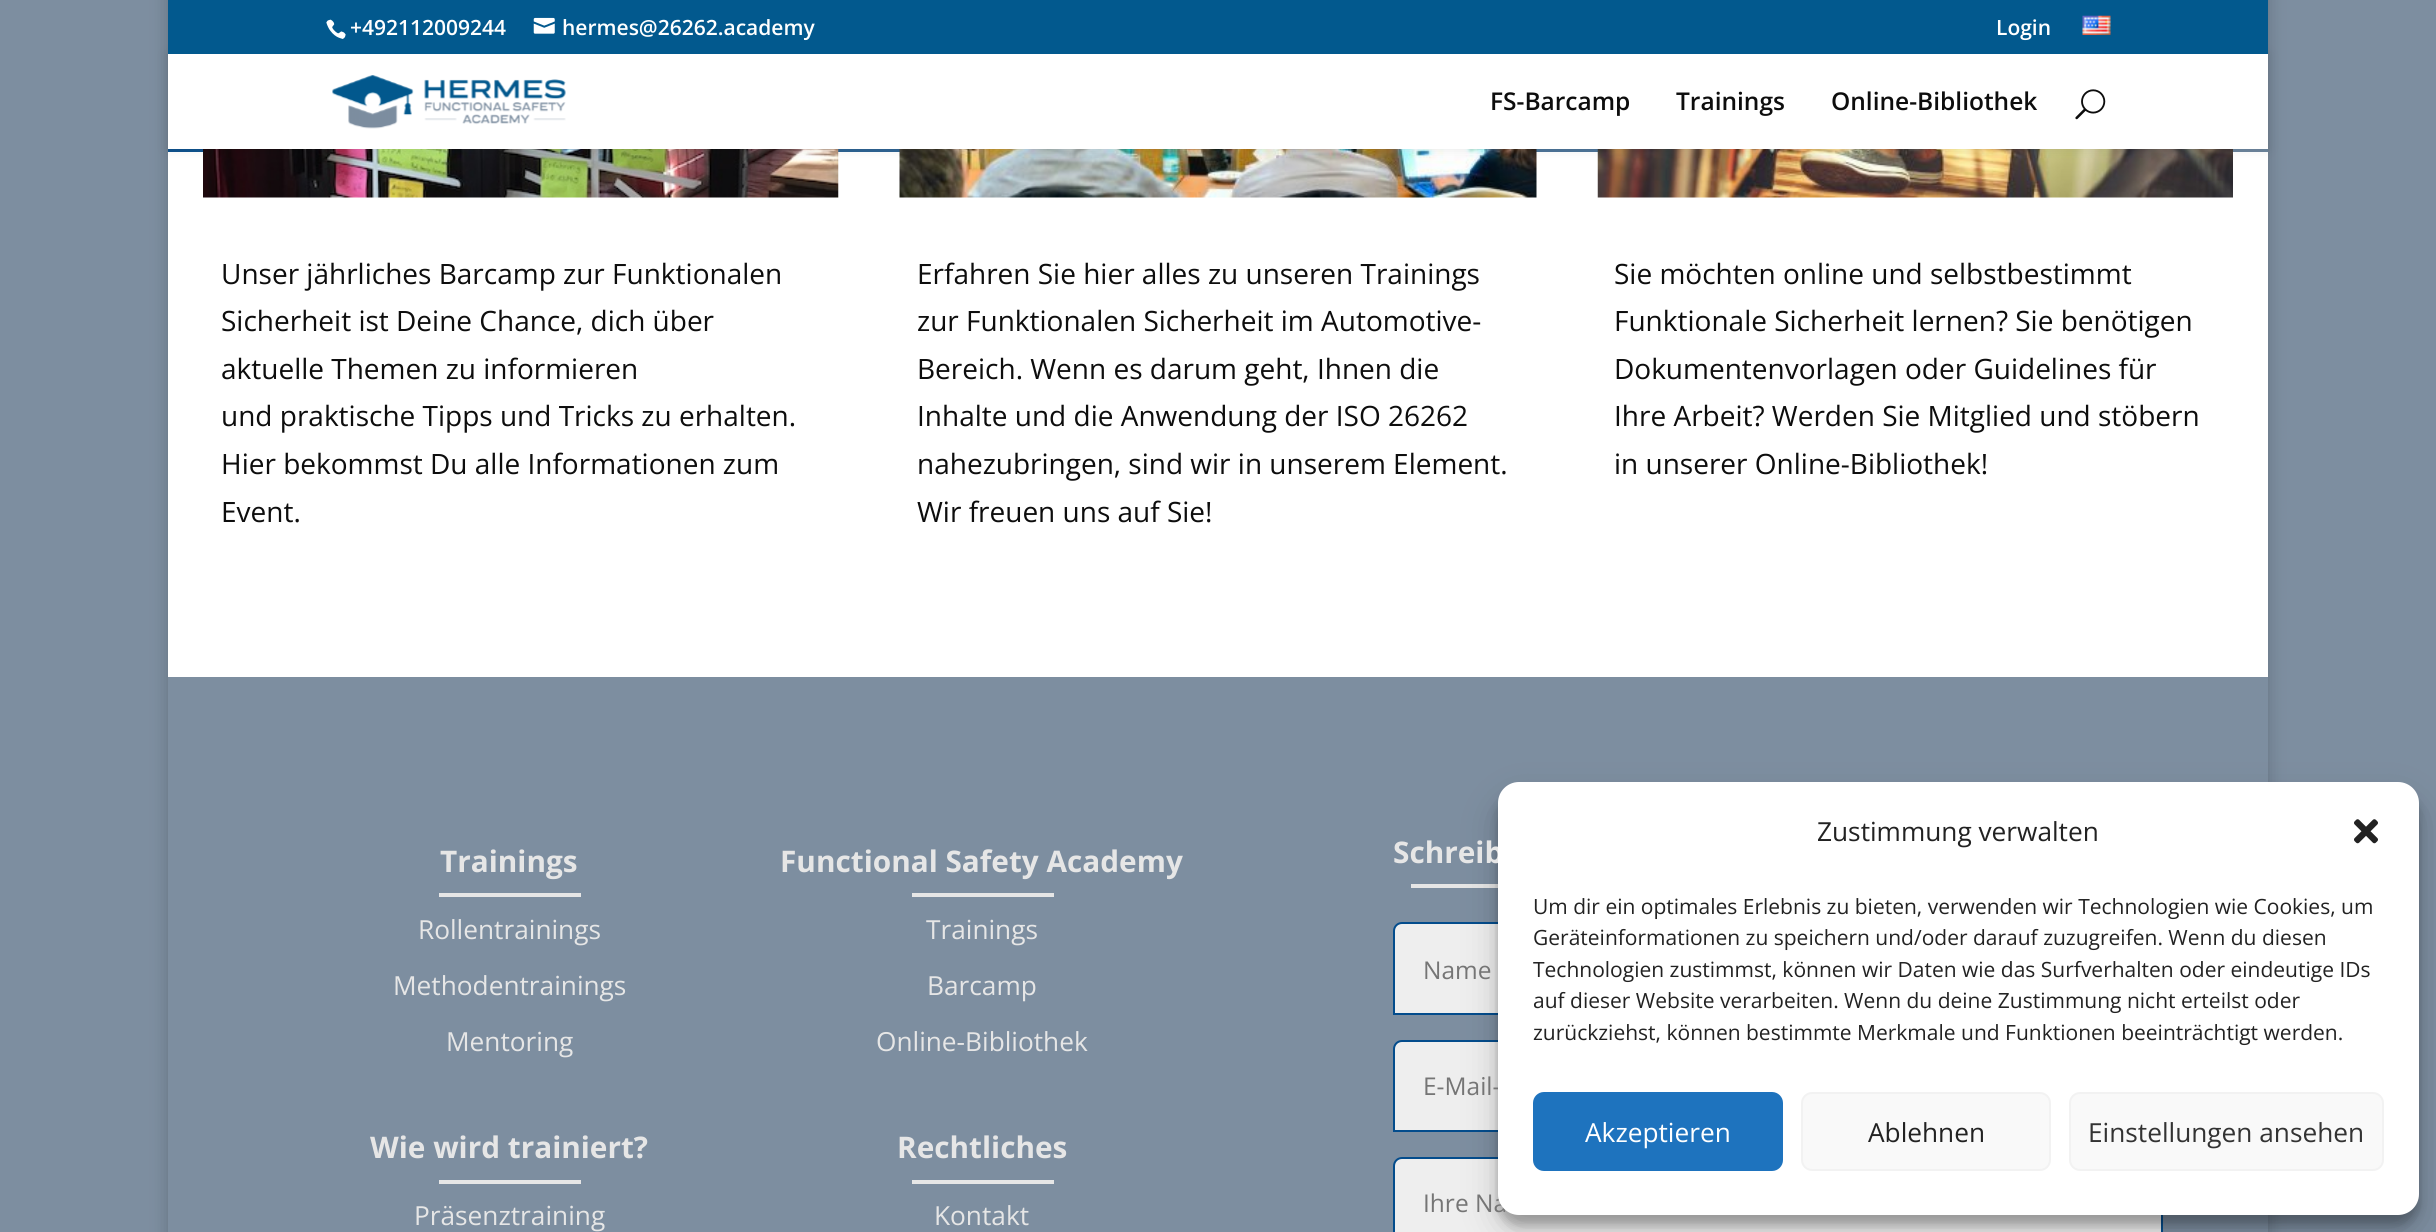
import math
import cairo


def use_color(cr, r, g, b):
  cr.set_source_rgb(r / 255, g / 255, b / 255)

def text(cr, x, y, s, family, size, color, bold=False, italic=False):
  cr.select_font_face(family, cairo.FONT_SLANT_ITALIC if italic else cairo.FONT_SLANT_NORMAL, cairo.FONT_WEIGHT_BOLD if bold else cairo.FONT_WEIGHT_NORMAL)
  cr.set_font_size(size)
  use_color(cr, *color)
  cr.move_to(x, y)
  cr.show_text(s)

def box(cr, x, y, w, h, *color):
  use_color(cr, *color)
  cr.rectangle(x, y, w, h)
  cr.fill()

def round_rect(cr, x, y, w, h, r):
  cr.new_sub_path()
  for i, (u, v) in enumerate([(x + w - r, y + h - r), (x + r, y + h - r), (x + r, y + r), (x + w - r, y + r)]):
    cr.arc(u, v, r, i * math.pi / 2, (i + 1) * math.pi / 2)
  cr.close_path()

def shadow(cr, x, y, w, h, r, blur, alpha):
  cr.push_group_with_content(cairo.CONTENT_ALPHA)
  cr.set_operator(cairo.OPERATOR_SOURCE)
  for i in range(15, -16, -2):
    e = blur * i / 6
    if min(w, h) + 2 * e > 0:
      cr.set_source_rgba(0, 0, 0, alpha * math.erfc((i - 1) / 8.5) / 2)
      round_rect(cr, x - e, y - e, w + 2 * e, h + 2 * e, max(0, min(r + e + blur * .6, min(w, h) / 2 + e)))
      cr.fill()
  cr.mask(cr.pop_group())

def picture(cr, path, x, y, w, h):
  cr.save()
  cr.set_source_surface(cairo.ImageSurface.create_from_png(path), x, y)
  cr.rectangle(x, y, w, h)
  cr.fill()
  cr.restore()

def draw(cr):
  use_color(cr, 125, 142, 160)
  cr.paint()
  cr.save()
  cr.set_fill_rule(cairo.FILL_RULE_EVEN_ODD)
  cr.new_path()
  cr.move_to(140, 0)
  cr.line_to(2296, 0)
  cr.line_to(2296, 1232)
  cr.line_to(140, 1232)
  cr.close_path()
  cr.move_to(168, -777)
  cr.line_to(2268, -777)
  cr.line_to(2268, 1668)
  cr.line_to(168, 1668)
  cr.close_path()
  cr.clip()
  use_color(cr, 0, 0, 0)
  shadow(cr, 168, -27, 2100, 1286, 0, 9, 0.2)
  cr.restore()
  box(cr, 168, 152, 2100, 525, 255, 255, 255)
  gradient = cairo.LinearGradient(114, 562, 2322, -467)
  gradient.add_color_stop_rgba(0, 0.012, 0.298, 0.549, 1)
  gradient.add_color_stop_rgba(1, 0.49, 0.557, 0.627, 1)
  cr.set_source(gradient)
  cr.rectangle(168, 149, 2100, 3)
  cr.fill()
  picture(cr, "img_06.png", 203, 149, 636, 49)
  picture(cr, "img_07.png", 899, 149, 638, 49)
  picture(cr, "img_08.png", 1597, 149, 636, 49)
  use_color(cr, 0, 0, 0)
  shadow(cr, 168, 54, 2100, 95, 0, 6, 0.1)
  box(cr, 168, 0, 2100, 54, 2, 89, 142)
  picture(cr, "img_01.png", 326, 19, 20, 20)
  picture(cr, "img_02.png", 533, 17, 22, 17)
  picture(cr, "img_03.png", 2082, 15, 29, 20)
  box(cr, 168, 54, 2100, 95, 255, 255, 255)
  picture(cr, "img_04.png", 332, 75, 234, 54)
  picture(cr, "img_05.png", 2075, 89, 31, 31)
  box(cr, 439, 893, 142, 4, 230, 230, 230)
  box(cr, 439, 1180, 142, 4, 230, 230, 230)
  box(cr, 912, 893, 142, 4, 230, 230, 230)
  box(cr, 912, 1180, 142, 4, 230, 230, 230)
  box(cr, 1411, 884, 87, 4, 230, 230, 230)
  use_color(cr, 238, 238, 238)
  cr.new_path()
  cr.move_to(1402, 923)
  cr.line_to(2154, 923)
  cr.curve_to(2158.5, 923, 2162, 926.5, 2162, 931)
  cr.line_to(2162, 1014)
  cr.line_to(1394, 1014)
  cr.line_to(1394, 931)
  cr.curve_to(1394, 926.5, 1397.5, 923, 1402, 923)
  cr.close_path()
  cr.fill_preserve()
  use_color(cr, 3, 76, 140)
  cr.stroke()
  use_color(cr, 238, 238, 238)
  cr.new_path()
  cr.move_to(1402, 1041)
  cr.line_to(2154, 1041)
  cr.curve_to(2158.5, 1041, 2162, 1044.5, 2162, 1049)
  cr.line_to(2162, 1131)
  cr.line_to(1394, 1131)
  cr.line_to(1394, 1049)
  cr.curve_to(1394, 1044.5, 1397.5, 1041, 1402, 1041)
  cr.close_path()
  cr.fill_preserve()
  use_color(cr, 3, 76, 140)
  cr.stroke()
  use_color(cr, 238, 238, 238)
  cr.new_path()
  cr.move_to(1402, 1158)
  cr.line_to(2154, 1158)
  cr.curve_to(2158.5, 1158, 2162, 1161.5, 2162, 1166)
  cr.line_to(2162, 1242)
  cr.line_to(1394, 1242)
  cr.line_to(1394, 1166)
  cr.curve_to(1394, 1161.5, 1397.5, 1158, 1402, 1158)
  cr.close_path()
  cr.fill_preserve()
  use_color(cr, 3, 76, 140)
  cr.stroke()
  use_color(cr, 0, 0, 0)
  shadow(cr, 1498, 793, 921, 432, 21, 5, 0.23)
  shadow(cr, 1498, 800, 921, 432, 21, 17.5, 0.19)
  text(cr, 350, 35, "+492112009244", "Open Sans SemiBold", 21, (255, 255, 255))
  text(cr, 562, 35, "hermes@26262.academy", "Open Sans SemiBold", 21, (255, 255, 255))
  text(cr, 1996, 35, "Login", "Open Sans SemiBold", 21, (255, 255, 255))
  text(cr, 1490, 110, "FS-Barcamp", "Open Sans SemiBold", 24.5, (13, 13, 13))
  text(cr, 1676, 110, "Trainings", "Open Sans SemiBold", 24.5, (13, 13, 13))
  text(cr, 1831, 110, "Online-Bibliothek", "Open Sans SemiBold", 24.5, (13, 13, 13))
  text(cr, 221, 284, "Unser jährliches Barcamp zur Funktionalen", "Open Sans", 28, (13, 13, 13))
  text(cr, 221, 331, "Sicherheit ist Deine Chance, dich über", "Open Sans", 28, (13, 13, 13))
  text(cr, 221, 379, "aktuelle Themen zu informieren", "Open Sans", 28, (13, 13, 13))
  text(cr, 221, 426, "und praktische Tipps und Tricks zu erhalten.", "Open Sans", 28, (13, 13, 13))
  text(cr, 221, 474, "Hier bekommst Du alle Informationen zum", "Open Sans", 28, (13, 13, 13))
  text(cr, 221, 522, "Event.", "Open Sans", 28, (13, 13, 13))
  text(cr, 917, 284, "Erfahren Sie hier alles zu unseren Trainings", "Open Sans", 28, (13, 13, 13))
  text(cr, 917, 331, "zur Funktionalen Sicherheit im Automotive-", "Open Sans", 28, (13, 13, 13))
  text(cr, 917, 379, "Bereich. Wenn es darum geht, Ihnen die", "Open Sans", 28, (13, 13, 13))
  text(cr, 917, 426, "Inhalte und die Anwendung der ISO 26262", "Open Sans", 28, (13, 13, 13))
  text(cr, 917, 474, "nahezubringen, sind wir in unserem Element.", "Open Sans", 28, (13, 13, 13))
  text(cr, 917, 522, "Wir freuen uns auf Sie!", "Open Sans", 28, (13, 13, 13))
  text(cr, 1614, 284, "Sie möchten online und selbstbestimmt", "Open Sans", 28, (13, 13, 13))
  text(cr, 1614, 331, "Funktionale Sicherheit lernen? Sie benötigen", "Open Sans", 28, (13, 13, 13))
  text(cr, 1614, 379, "Dokumentenvorlagen oder Guidelines für", "Open Sans", 28, (13, 13, 13))
  text(cr, 1614, 426, "Ihre Arbeit? Werden Sie Mitglied und stöbern", "Open Sans", 28, (13, 13, 13))
  text(cr, 1614, 474, "in unserer Online-Bibliothek!", "Open Sans", 28, (13, 13, 13))
  text(cr, 440, 872, "Trainings", "Open Sans", 29.75, (230, 230, 230), bold=True)
  text(cr, 418, 939, "Rollentrainings", "Open Sans", 26.25, (230, 230, 230))
  text(cr, 393, 995, "Methodentrainings", "Open Sans", 26.25, (230, 230, 230))
  text(cr, 446, 1051, "Mentoring", "Open Sans", 26.25, (230, 230, 230))
  text(cr, 370, 1158, "Wie wird trainiert?", "Open Sans", 29.75, (230, 230, 230), bold=True)
  text(cr, 414, 1225, "Präsenztraining", "Open Sans", 26.25, (230, 230, 230))
  text(cr, 780, 872, "Functional Safety Academy", "Open Sans", 29.75, (230, 230, 230), bold=True)
  text(cr, 926, 939, "Trainings", "Open Sans", 26.25, (230, 230, 230))
  text(cr, 927, 995, "Barcamp", "Open Sans", 26.25, (230, 230, 230))
  text(cr, 876, 1051, "Online-Bibliothek", "Open Sans", 26.25, (230, 230, 230))
  text(cr, 897, 1158, "Rechtliches", "Open Sans", 29.75, (230, 230, 230), bold=True)
  text(cr, 934, 1225, "Kontakt", "Open Sans", 26.25, (230, 230, 230))
  text(cr, 1393, 863, "Schreib", "Open Sans", 29.75, (230, 230, 230), bold=True)
  text(cr, 1423, 979, "Name", "Open Sans", 24.5, (117, 117, 117))
  text(cr, 1423, 1095, "E-Mail-", "Open Sans", 24.5, (117, 117, 117))
  text(cr, 1423, 1212, "Ihre Na", "Open Sans", 24.5, (117, 117, 117))
  use_color(cr, 255, 255, 255)
  round_rect(cr, 1498, 782, 921, 433, 21)
  cr.fill()
  text(cr, 1817, 841, "Zustimmung verwalten", "Open Sans", 26.25, (34, 34, 34))
  picture(cr, "img_09.png", 2354, 819, 24, 25)
  text(cr, 1533, 914, "Um dir ein optimales Erlebnis zu bieten, verwenden wir Technologien wie Cookies, um", "Open Sans", 21, (34, 34, 34))
  text(cr, 1533, 945, "Geräteinformationen zu speichern und/oder darauf zuzugreifen. Wenn du diesen", "Open Sans", 21, (34, 34, 34))
  text(cr, 1533, 977, "Technologien zustimmst, können wir Daten wie das Surfverhalten oder eindeutige IDs", "Open Sans", 21, (34, 34, 34))
  text(cr, 1533, 1008, "auf dieser Website verarbeiten. Wenn du deine Zustimmung nicht erteilst oder", "Open Sans", 21, (34, 34, 34))
  text(cr, 1533, 1040, "zurückziehst, können bestimmte Merkmale und Funktionen beeinträchtigt werden.", "Open Sans", 21, (34, 34, 34))
  use_color(cr, 30, 115, 190)
  round_rect(cr, 1534, 1093, 248, 77, 10)
  cr.fill_preserve()
  cr.stroke()
  text(cr, 1585, 1142, "Akzeptieren", "Open Sans", 26.25, (255, 255, 255))
  use_color(cr, 249, 249, 249)
  round_rect(cr, 1802, 1093, 248, 77, 10)
  cr.fill_preserve()
  use_color(cr, 242, 242, 242)
  cr.stroke()
  text(cr, 1868, 1142, "Ablehnen", "Open Sans", 26.25, (34, 34, 34))
  use_color(cr, 249, 249, 249)
  round_rect(cr, 2070, 1093, 313, 77, 10)
  cr.fill_preserve()
  use_color(cr, 242, 242, 242)
  cr.stroke()
  text(cr, 2088, 1142, "Einstellungen ansehen", "Open Sans", 26.25, (51, 51, 51))


surface = cairo.ImageSurface(cairo.FORMAT_RGB24, 2436, 1232)
cr = cairo.Context(surface)
options = cairo.FontOptions()
options.set_hint_metrics(cairo.HINT_METRICS_OFF)
options.set_hint_style(cairo.HINT_STYLE_NONE)
cr.set_font_options(options)
cr.set_miter_limit(4)
draw(cr)
surface.write_to_png("out.png")
